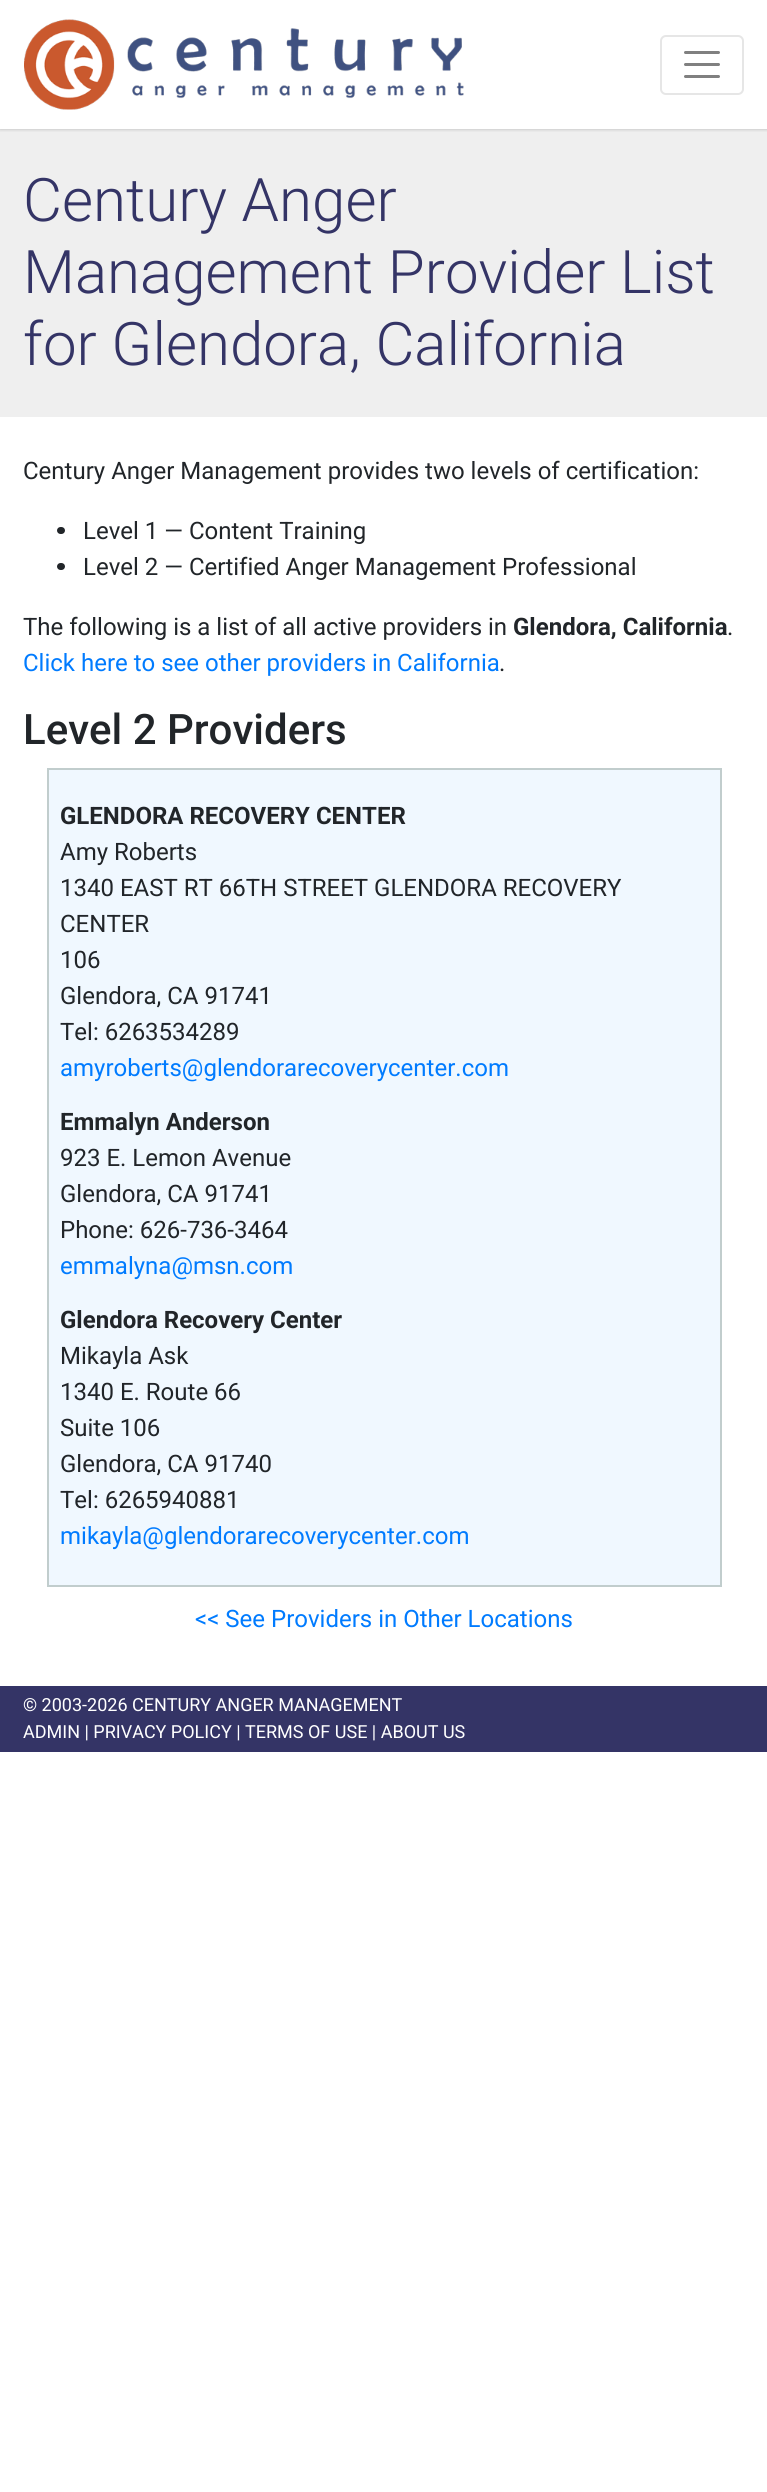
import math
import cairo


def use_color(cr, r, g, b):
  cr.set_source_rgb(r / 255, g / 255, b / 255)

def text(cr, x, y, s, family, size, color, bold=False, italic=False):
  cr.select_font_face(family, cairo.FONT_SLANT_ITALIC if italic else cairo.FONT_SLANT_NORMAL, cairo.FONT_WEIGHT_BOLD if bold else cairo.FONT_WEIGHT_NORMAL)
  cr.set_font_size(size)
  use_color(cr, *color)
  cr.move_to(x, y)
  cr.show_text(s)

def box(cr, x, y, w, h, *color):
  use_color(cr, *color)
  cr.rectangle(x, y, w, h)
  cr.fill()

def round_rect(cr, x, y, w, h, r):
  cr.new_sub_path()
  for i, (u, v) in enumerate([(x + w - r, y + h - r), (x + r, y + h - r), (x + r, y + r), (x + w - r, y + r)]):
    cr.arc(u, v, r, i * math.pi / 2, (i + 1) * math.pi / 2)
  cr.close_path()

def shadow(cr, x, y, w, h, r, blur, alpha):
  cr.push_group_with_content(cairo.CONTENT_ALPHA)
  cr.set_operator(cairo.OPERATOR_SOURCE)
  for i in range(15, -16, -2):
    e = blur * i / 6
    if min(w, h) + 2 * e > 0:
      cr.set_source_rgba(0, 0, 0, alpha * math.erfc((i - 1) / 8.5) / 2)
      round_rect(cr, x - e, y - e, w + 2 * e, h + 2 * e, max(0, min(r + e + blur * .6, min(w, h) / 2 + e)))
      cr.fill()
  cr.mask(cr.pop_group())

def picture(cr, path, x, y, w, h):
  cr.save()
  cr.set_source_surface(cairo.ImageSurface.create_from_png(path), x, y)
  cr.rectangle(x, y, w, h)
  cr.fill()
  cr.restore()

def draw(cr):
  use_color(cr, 255, 255, 255)
  cr.paint()
  box(cr, 0, 129, 767, 288, 239, 239, 239)
  cr.save()
  cr.rectangle(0, 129, 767, 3)
  cr.clip()
  use_color(cr, 0, 0, 0)
  shadow(cr, 0, 0, 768, 129, 0, 2, 0.25)
  cr.restore()
  picture(cr, "img_01.png", 24, 19, 440, 91)
  round_rect(cr, 661, 36, 82, 58, 5)
  use_color(cr, 230, 230, 230)
  cr.stroke()
  cr.new_path()
  cr.move_to(685.5, 52.5)
  cr.line_to(718.5, 52.5)
  cr.move_to(685.5, 64.5)
  cr.line_to(718.5, 64.5)
  cr.move_to(685.5, 76.5)
  cr.line_to(718.5, 76.5)
  use_color(cr, 128, 128, 128)
  cr.set_line_width(3)
  cr.set_line_cap(cairo.LINE_CAP_ROUND)
  cr.stroke()
  use_color(cr, 33, 37, 41)
  round_rect(cr, 57, 527, 8, 7, 3.5)
  cr.fill()
  round_rect(cr, 57, 563, 8, 7, 3.5)
  cr.fill()
  use_color(cr, 240, 248, 255)
  cr.rectangle(48, 769, 673, 817)
  cr.fill_preserve()
  use_color(cr, 193, 205, 205)
  cr.set_line_width(2)
  cr.set_line_cap(cairo.LINE_CAP_BUTT)
  cr.stroke()
  box(cr, 0, 1686, 767, 66, 52, 52, 102)
  text(cr, 23, 221, "Century Anger", "Roboto Light", 60, (52, 52, 102))
  text(cr, 23, 293, "Management Provider List", "Roboto Light", 60, (52, 52, 102))
  text(cr, 23, 365, "for Glendora, California", "Roboto Light", 60, (52, 52, 102))
  text(cr, 23, 479, "Century Anger Management provides two levels of certification:", "Roboto", 24, (33, 37, 41))
  text(cr, 83, 539, "Level 1 — Content Training", "Roboto", 24, (33, 37, 41))
  text(cr, 83, 575, "Level 2 — Certified Anger Management Professional", "Roboto", 24, (33, 37, 41))
  text(cr, 23, 635, "The following is a list of all active providers in", "Roboto", 24, (33, 37, 41))
  text(cr, 513, 635, "Glendora, California", "Roboto", 24, (33, 37, 41), bold=True)
  text(cr, 727, 635, ".", "Roboto", 24, (33, 37, 41))
  text(cr, 23, 671, "Click here to see other providers in California", "Roboto", 24, (0, 123, 255))
  text(cr, 499, 671, ".", "Roboto", 24, (33, 37, 41))
  text(cr, 23, 744, "Level 2 Providers", "Roboto Medium", 42, (33, 37, 41))
  text(cr, 60, 824, "GLENDORA RECOVERY CENTER", "Roboto", 24, (33, 37, 41), bold=True)
  text(cr, 60, 860, "Amy Roberts", "Roboto", 24, (33, 37, 41))
  text(cr, 60, 896, "1340 EAST RT 66TH STREET GLENDORA RECOVERY", "Roboto", 24, (33, 37, 41))
  text(cr, 60, 932, "CENTER", "Roboto", 24, (33, 37, 41))
  text(cr, 60, 968, "106", "Roboto", 24, (33, 37, 41))
  text(cr, 60, 1004, "Glendora, CA 91741", "Roboto", 24, (33, 37, 41))
  text(cr, 60, 1040, "Tel: 6263534289", "Roboto", 24, (33, 37, 41))
  text(cr, 60, 1076, "amyroberts@glendorarecoverycenter.com", "Roboto", 24, (0, 123, 255))
  text(cr, 60, 1130, "Emmalyn Anderson", "Roboto", 24, (33, 37, 41), bold=True)
  text(cr, 60, 1166, "923 E. Lemon Avenue", "Roboto", 24, (33, 37, 41))
  text(cr, 60, 1202, "Glendora, CA 91741", "Roboto", 24, (33, 37, 41))
  text(cr, 60, 1238, "Phone: 626-736-3464", "Roboto", 24, (33, 37, 41))
  text(cr, 60, 1274, "emmalyna@msn.com", "Roboto", 24, (0, 123, 255))
  text(cr, 60, 1328, "Glendora Recovery Center", "Roboto", 24, (33, 37, 41), bold=True)
  text(cr, 60, 1364, "Mikayla Ask", "Roboto", 24, (33, 37, 41))
  text(cr, 60, 1400, "1340 E. Route 66", "Roboto", 24, (33, 37, 41))
  text(cr, 60, 1436, "Suite 106", "Roboto", 24, (33, 37, 41))
  text(cr, 60, 1472, "Glendora, CA 91740", "Roboto", 24, (33, 37, 41))
  text(cr, 60, 1508, "Tel: 6265940881", "Roboto", 24, (33, 37, 41))
  text(cr, 60, 1544, "mikayla@glendorarecoverycenter.com", "Roboto", 24, (0, 123, 255))
  text(cr, 195, 1627, "<< See Providers in Other Locations", "Roboto", 24, (0, 123, 255))
  text(cr, 23, 1711, "© 2003-2026 CENTURY ANGER MANAGEMENT", "Roboto", 18, (255, 255, 255))
  text(cr, 23, 1738, "ADMIN | PRIVACY POLICY | TERMS OF USE | ABOUT US", "Roboto", 18, (255, 255, 255))


surface = cairo.ImageSurface(cairo.FORMAT_RGB24, 767, 2492)
cr = cairo.Context(surface)
options = cairo.FontOptions()
options.set_hint_metrics(cairo.HINT_METRICS_OFF)
options.set_hint_style(cairo.HINT_STYLE_NONE)
cr.set_font_options(options)
cr.set_miter_limit(4)
draw(cr)
surface.write_to_png("out.png")
